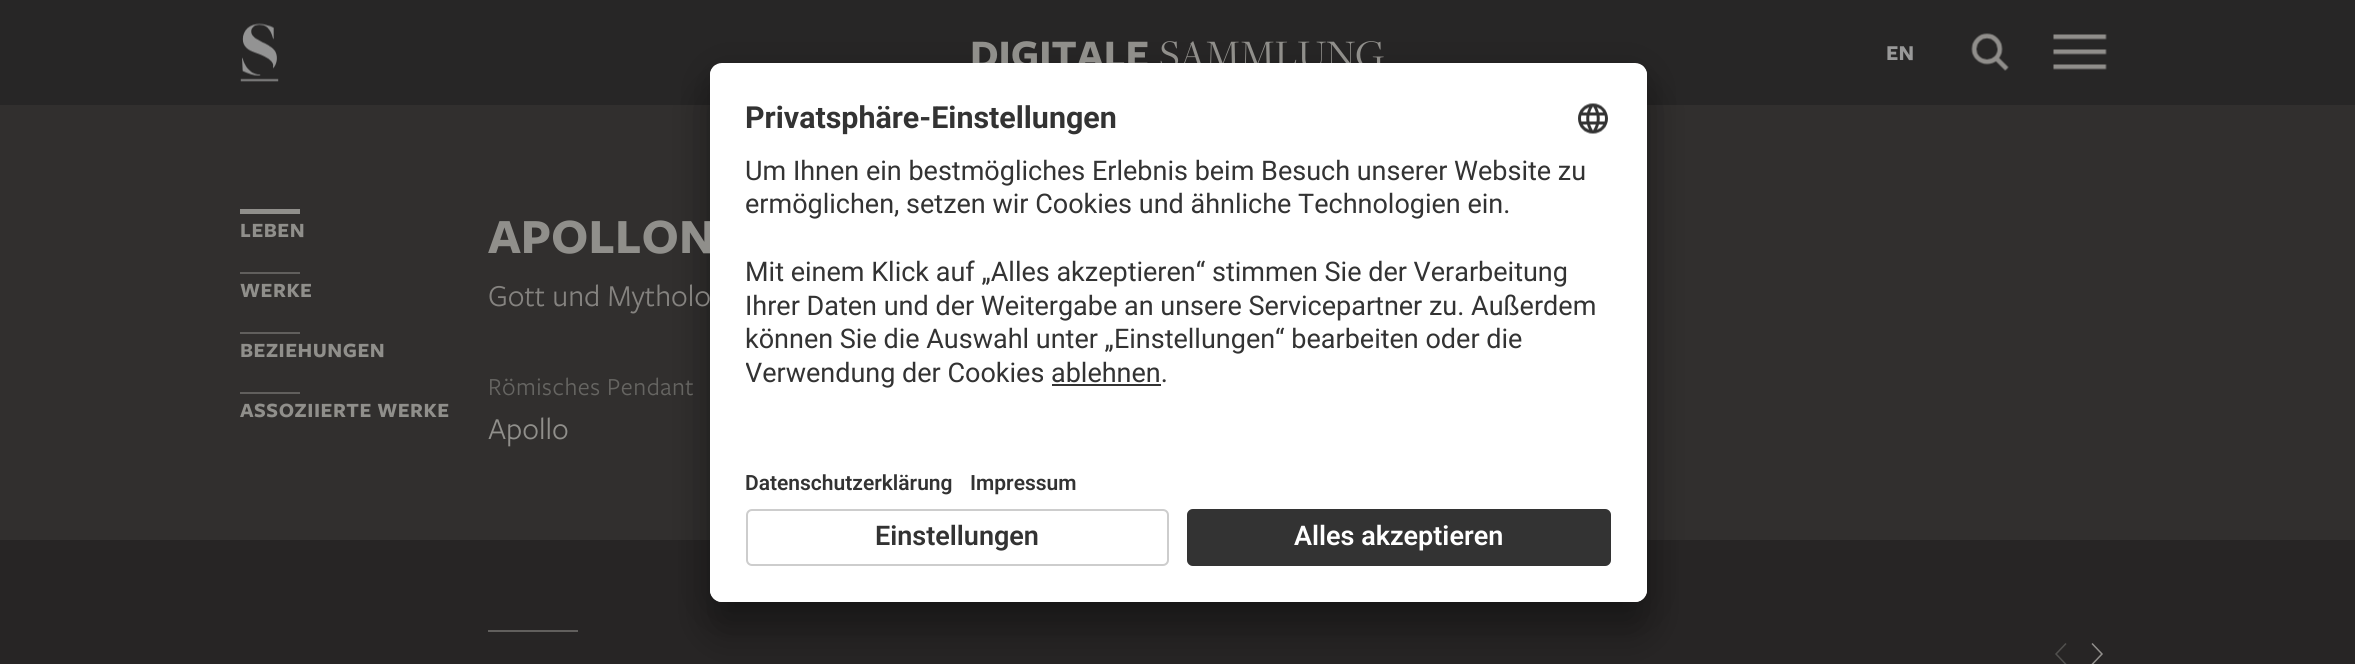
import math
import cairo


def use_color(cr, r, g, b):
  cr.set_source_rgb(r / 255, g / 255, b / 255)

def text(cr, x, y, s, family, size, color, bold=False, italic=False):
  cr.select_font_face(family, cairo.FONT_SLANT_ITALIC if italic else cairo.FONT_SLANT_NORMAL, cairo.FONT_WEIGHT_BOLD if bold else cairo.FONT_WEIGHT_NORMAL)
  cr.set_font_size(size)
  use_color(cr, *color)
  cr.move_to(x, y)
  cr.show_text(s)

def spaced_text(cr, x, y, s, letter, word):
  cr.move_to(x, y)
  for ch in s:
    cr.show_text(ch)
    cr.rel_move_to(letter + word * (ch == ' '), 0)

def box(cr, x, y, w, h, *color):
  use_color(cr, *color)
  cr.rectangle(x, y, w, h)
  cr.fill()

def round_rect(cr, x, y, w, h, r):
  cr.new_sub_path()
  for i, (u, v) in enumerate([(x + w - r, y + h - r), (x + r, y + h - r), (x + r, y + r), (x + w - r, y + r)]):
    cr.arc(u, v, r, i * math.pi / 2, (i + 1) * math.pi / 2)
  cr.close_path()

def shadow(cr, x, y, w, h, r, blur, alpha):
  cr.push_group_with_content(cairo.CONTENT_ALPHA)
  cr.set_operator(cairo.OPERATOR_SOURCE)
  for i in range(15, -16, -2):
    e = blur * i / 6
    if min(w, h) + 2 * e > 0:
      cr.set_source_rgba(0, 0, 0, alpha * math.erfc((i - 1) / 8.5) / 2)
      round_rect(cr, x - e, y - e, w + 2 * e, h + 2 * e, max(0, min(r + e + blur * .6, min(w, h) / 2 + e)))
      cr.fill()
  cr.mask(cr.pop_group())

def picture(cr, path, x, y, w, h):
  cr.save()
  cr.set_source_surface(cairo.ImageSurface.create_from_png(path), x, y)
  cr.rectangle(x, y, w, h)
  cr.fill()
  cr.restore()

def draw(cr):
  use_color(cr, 49, 47, 46)
  cr.paint()
  box(cr, 0, 0, 2355, 105, 39, 38, 38)
  picture(cr, "img_01.png", 240, 23, 39, 59)
  picture(cr, "img_02.png", 1971, 33, 38, 38)
  picture(cr, "img_03.png", 2053, 34, 54, 36)
  box(cr, 240, 209, 60, 5, 144, 143, 139)
  box(cr, 240, 272, 60, 2, 97, 95, 93)
  box(cr, 240, 332, 60, 2, 97, 95, 93)
  box(cr, 240, 392, 60, 2, 97, 95, 93)
  box(cr, 0, 540, 2355, 124, 39, 37, 37)
  box(cr, 488, 630, 90, 2, 97, 95, 93)
  cr.new_path()
  cr.move_to(2066, 643.5)
  cr.line_to(2056, 654)
  cr.line_to(2066, 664.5)
  use_color(cr, 81, 80, 78)
  cr.set_line_width(1.5)
  cr.stroke()
  cr.new_path()
  cr.move_to(2092, 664.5)
  cr.line_to(2102, 654)
  cr.line_to(2092, 643.5)
  use_color(cr, 145, 143, 140)
  cr.stroke()
  use_color(cr, 0, 0, 0)
  shadow(cr, 710, 93, 937, 539, 12, 21, 0.3)
  shadow(cr, 710, 71, 937, 538, 12, 19.5, 0.22)
  text(cr, 970, 68, "DIGITALE", "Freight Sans", 42, (144, 143, 139), bold=True)
  text(cr, 1159, 68, "SAMMLUNG", "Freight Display", 42, (144, 143, 139))
  text(cr, 1886, 60, "EN", "Freight Sans", 22, (153, 153, 153), bold=True)
  cr.set_font_size(21)
  use_color(cr, 144, 143, 139)
  spaced_text(cr, 240, 237, "LEBEN", 0.5, 0)
  spaced_text(cr, 240, 297, "WERKE", 0.5, 0)
  spaced_text(cr, 240, 357, "BEZIEHUNGEN", 0.5, 0)
  spaced_text(cr, 240, 417, "ASSOZIIERTE WERKE", 0.5, 0)
  text(cr, 488, 253, "APOLLON", "Freight Sans", 51, (144, 143, 139), bold=True)
  text(cr, 488, 306, "Gott und Mytholo", "Freight Sans", 31.5, (133, 131, 128))
  cr.set_font_size(25.5)
  use_color(cr, 102, 101, 98)
  spaced_text(cr, 488, 395, "Römisches Pendant", 0.5, 0)
  text(cr, 488, 439, "Apollo", "Freight Sans", 31.5, (144, 143, 139))
  use_color(cr, 255, 255, 255)
  round_rect(cr, 710, 63, 937, 539, 12)
  cr.fill()
  cr.save()
  round_rect(cr, 710, 63, 937, 539, 12)
  cr.clip()
  cr.new_path()
  cr.move_to(722, 63)
  cr.line_to(1635, 63)
  cr.curve_to(1641.5, 63, 1647, 68.5, 1647, 75)
  cr.line_to(1647, 497)
  cr.line_to(710, 497)
  cr.line_to(710, 75)
  cr.curve_to(710, 68.5, 715.5, 63, 722, 63)
  cr.close_path()
  cr.clip()
  box(cr, 710, 65, 937, 432, 255, 255, 255)
  cr.restore()
  text(cr, 745, 128, "Privatsphäre-Einstellungen", "Roboto", 30.4, (51, 51, 51), bold=True)
  picture(cr, "img_04.png", 1578, 103, 30, 31)
  text(cr, 745, 180, "Um Ihnen ein bestmögliches Erlebnis beim Besuch unserer Website zu", "Roboto", 27, (51, 51, 51))
  text(cr, 745, 213, "ermöglichen, setzen wir Cookies und ähnliche Technologien ein.", "Roboto", 27, (51, 51, 51))
  text(cr, 745, 281, "Mit einem Klick auf „Alles akzeptieren“ stimmen Sie der Verarbeitung", "Roboto", 27, (51, 51, 51))
  text(cr, 745, 315, "Ihrer Daten und der Weitergabe an unsere Servicepartner zu. Außerdem", "Roboto", 27, (51, 51, 51))
  text(cr, 745, 348, "können Sie die Auswahl unter „Einstellungen“ bearbeiten oder die", "Roboto", 27, (51, 51, 51))
  cr.save()
  cr.rectangle(746, 149, 865, 282)
  cr.clip()
  text(cr, 745, 382, "Verwendung der Cookies", "Roboto", 27, (51, 51, 51))
  cr.restore()
  text(cr, 1051, 382, "ablehnen.", "Roboto", 27, (51, 51, 51))
  box(cr, 1052, 384, 109, 2, 51, 51, 51)
  text(cr, 745, 490, "Datenschutzerklärung", "Roboto SemiBold", 21, (51, 51, 51))
  text(cr, 970, 490, "Impressum", "Roboto SemiBold", 21, (51, 51, 51))
  use_color(cr, 255, 255, 255)
  cr.new_path()
  cr.move_to(710, 497)
  cr.line_to(1647, 497)
  cr.line_to(1647, 590)
  cr.curve_to(1647, 596.5, 1641.5, 602, 1635, 602)
  cr.line_to(722, 602)
  cr.curve_to(715.5, 602, 710, 596.5, 710, 590)
  cr.close_path()
  cr.fill()
  round_rect(cr, 747, 510, 421, 55, 5)
  use_color(cr, 205, 205, 205)
  cr.set_line_width(2)
  cr.stroke()
  text(cr, 875, 545, "Einstellungen", "Roboto SemiBold", 27, (51, 51, 51))
  round_rect(cr, 1187, 509, 424, 57, 6)
  cr.fill()
  round_rect(cr, 1188, 510, 422, 55, 5)
  cr.set_source_rgba(0.208, 0.208, 0.208, 0.25)
  cr.stroke()
  text(cr, 1294, 545, "Alles akzeptieren", "Roboto SemiBold", 27, (255, 255, 255))


surface = cairo.ImageSurface(cairo.FORMAT_RGB24, 2355, 664)
cr = cairo.Context(surface)
options = cairo.FontOptions()
options.set_hint_metrics(cairo.HINT_METRICS_OFF)
options.set_hint_style(cairo.HINT_STYLE_NONE)
cr.set_font_options(options)
cr.set_miter_limit(4)
draw(cr)
surface.write_to_png("out.png")
